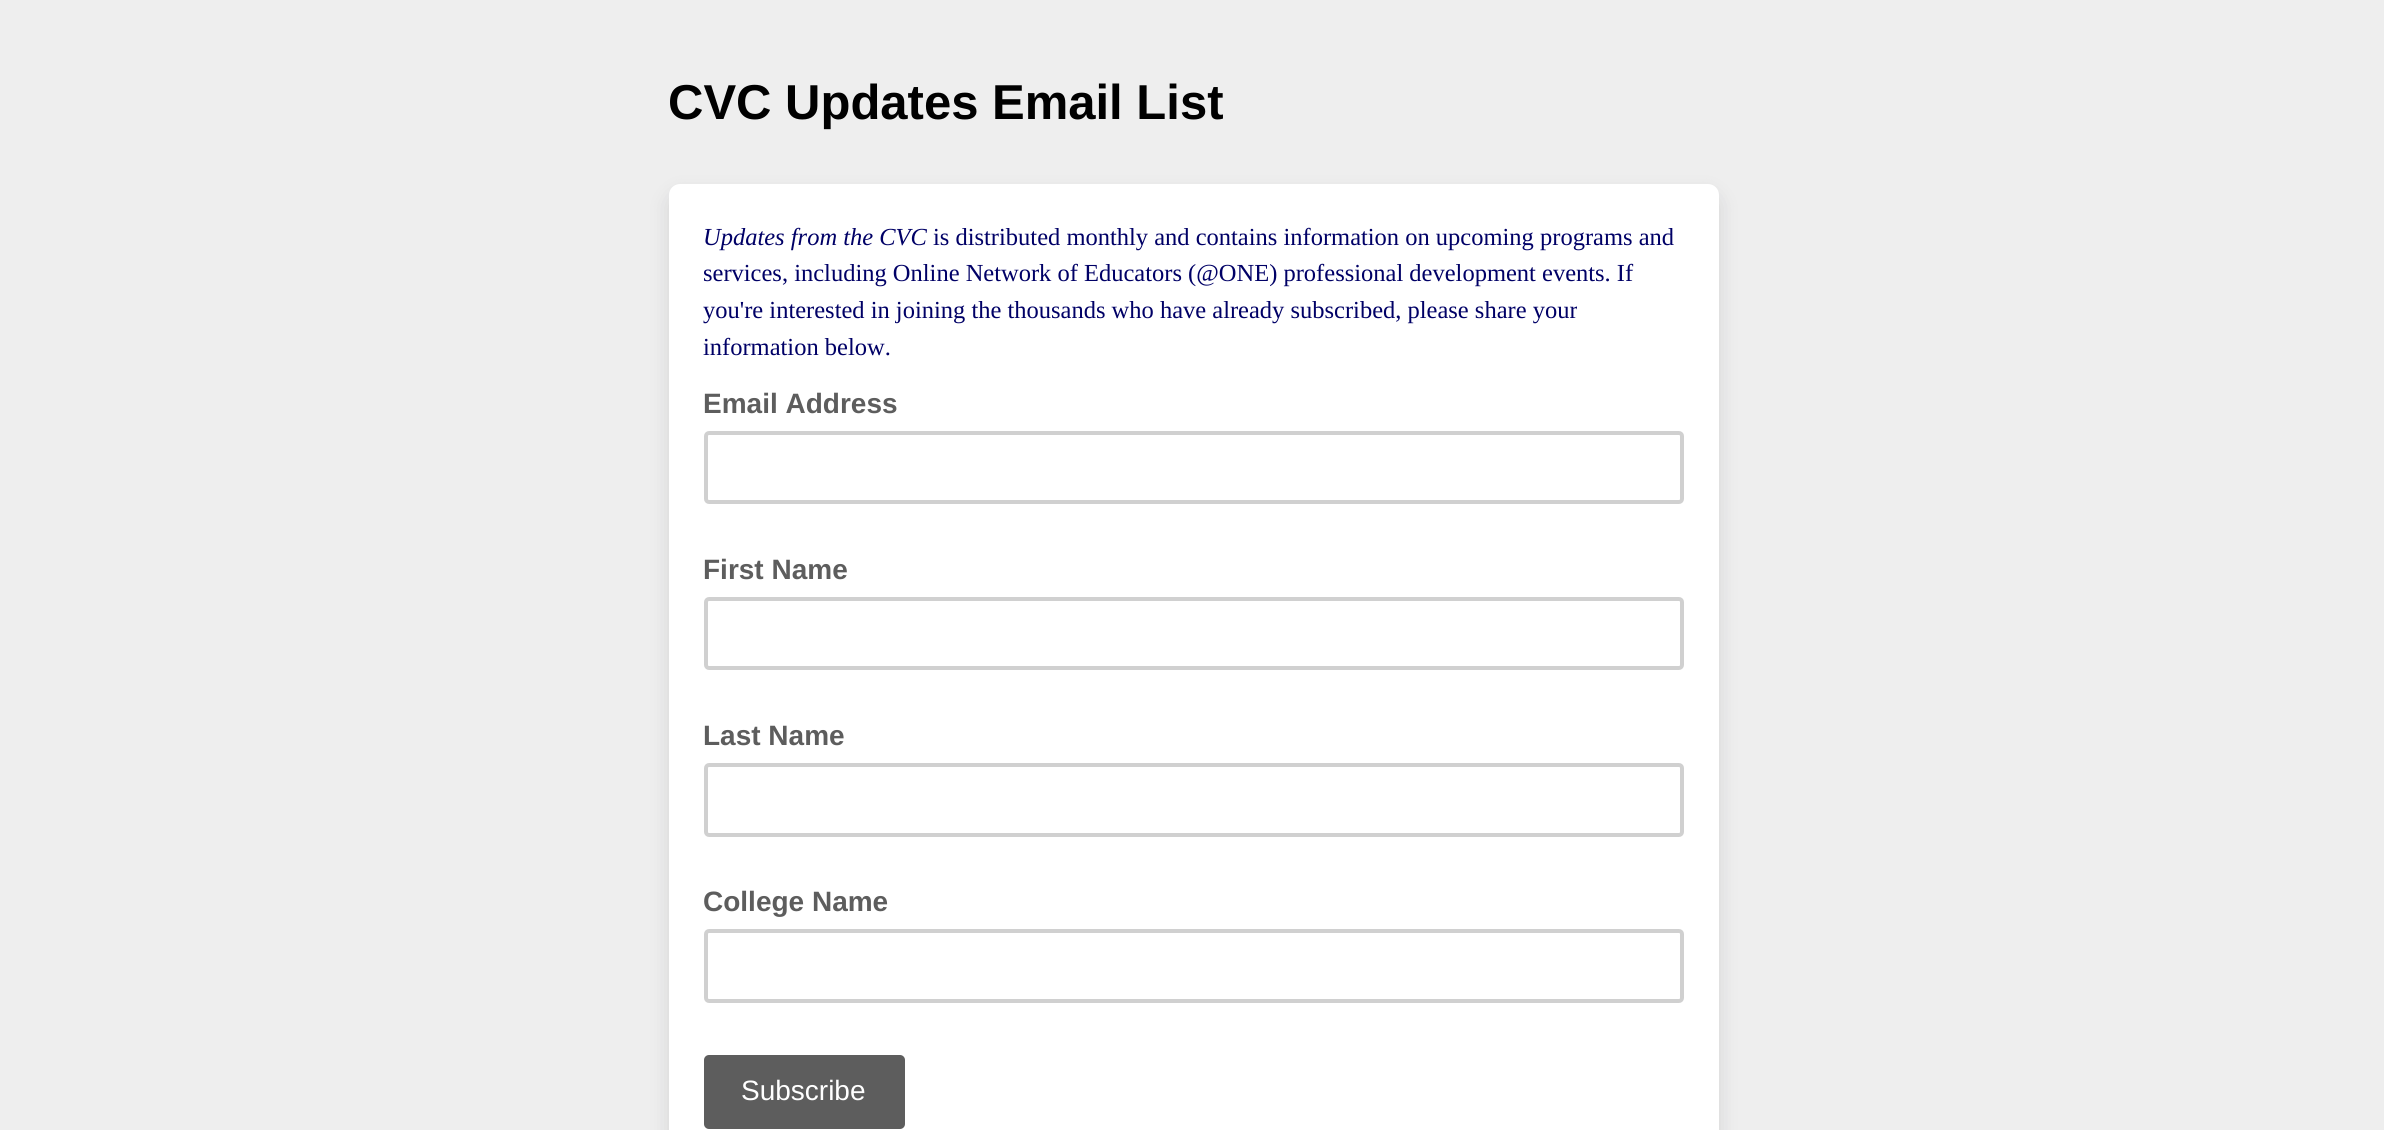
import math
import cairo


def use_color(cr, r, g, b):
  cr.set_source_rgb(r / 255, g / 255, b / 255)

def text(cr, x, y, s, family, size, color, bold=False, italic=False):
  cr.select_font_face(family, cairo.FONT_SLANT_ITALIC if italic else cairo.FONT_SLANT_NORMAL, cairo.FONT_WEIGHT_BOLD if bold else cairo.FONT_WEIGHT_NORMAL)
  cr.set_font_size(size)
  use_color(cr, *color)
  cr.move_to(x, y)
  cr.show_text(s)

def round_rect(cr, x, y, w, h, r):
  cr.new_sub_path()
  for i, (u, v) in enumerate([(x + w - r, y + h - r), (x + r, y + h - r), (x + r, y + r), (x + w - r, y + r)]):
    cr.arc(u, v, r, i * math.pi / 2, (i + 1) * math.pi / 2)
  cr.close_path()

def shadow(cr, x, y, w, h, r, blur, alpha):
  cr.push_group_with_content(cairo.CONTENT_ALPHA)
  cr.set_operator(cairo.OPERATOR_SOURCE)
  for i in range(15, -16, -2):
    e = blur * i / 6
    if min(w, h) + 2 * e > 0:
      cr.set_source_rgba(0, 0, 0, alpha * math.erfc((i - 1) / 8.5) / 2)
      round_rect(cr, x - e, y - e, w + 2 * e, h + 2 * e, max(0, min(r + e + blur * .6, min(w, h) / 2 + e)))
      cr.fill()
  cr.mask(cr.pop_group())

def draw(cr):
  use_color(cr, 238, 238, 238)
  cr.paint()
  use_color(cr, 13, 18, 22)
  shadow(cr, 669, 194, 1050, 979, 11, 10.5, 0.12)
  use_color(cr, 255, 255, 255)
  round_rect(cr, 669, 184, 1050, 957, 11)
  cr.fill()
  round_rect(cr, 706, 433, 976, 69, 3)
  use_color(cr, 208, 208, 208)
  cr.set_line_width(4)
  cr.stroke()
  round_rect(cr, 706, 599, 976, 69, 3)
  cr.stroke()
  round_rect(cr, 706, 765, 976, 70, 3)
  cr.stroke()
  round_rect(cr, 706, 931, 976, 70, 3)
  cr.stroke()
  use_color(cr, 93, 93, 93)
  round_rect(cr, 704, 1055, 201, 74, 5)
  cr.fill()
  text(cr, 668, 119, "CVC Updates Email List", "Liberation Sans", 49, (0, 0, 0), bold=True)
  text(cr, 703, 245, "Updates from the CVC", "Liberation Serif", 24.5, (0, 0, 102), italic=True)
  text(cr, 933, 245, "is distributed monthly and contains information on upcoming programs and", "Liberation Serif", 24.5, (0, 0, 102))
  text(cr, 703, 281, "services, including Online Network of Educators (@ONE) professional development events. If", "Liberation Serif", 24.5, (0, 0, 102))
  text(cr, 703, 318, "you're interested in joining the thousands who have already subscribed, please share your", "Liberation Serif", 24.5, (0, 0, 102))
  text(cr, 703, 355, "information below.", "Liberation Serif", 24.5, (0, 0, 102))
  text(cr, 703, 413, "Email Address", "Liberation Sans", 28, (93, 93, 93), bold=True)
  text(cr, 703, 579, "First Name", "Liberation Sans", 28, (93, 93, 93), bold=True)
  text(cr, 703, 745, "Last Name", "Liberation Sans", 28, (93, 93, 93), bold=True)
  text(cr, 703, 911, "College Name", "Liberation Sans", 28, (93, 93, 93), bold=True)
  text(cr, 741, 1100, "Subscribe", "Liberation Sans", 28, (255, 255, 255))


surface = cairo.ImageSurface(cairo.FORMAT_RGB24, 2384, 1130)
cr = cairo.Context(surface)
options = cairo.FontOptions()
options.set_hint_metrics(cairo.HINT_METRICS_OFF)
options.set_hint_style(cairo.HINT_STYLE_NONE)
cr.set_font_options(options)
cr.set_miter_limit(4)
draw(cr)
surface.write_to_png("out.png")
